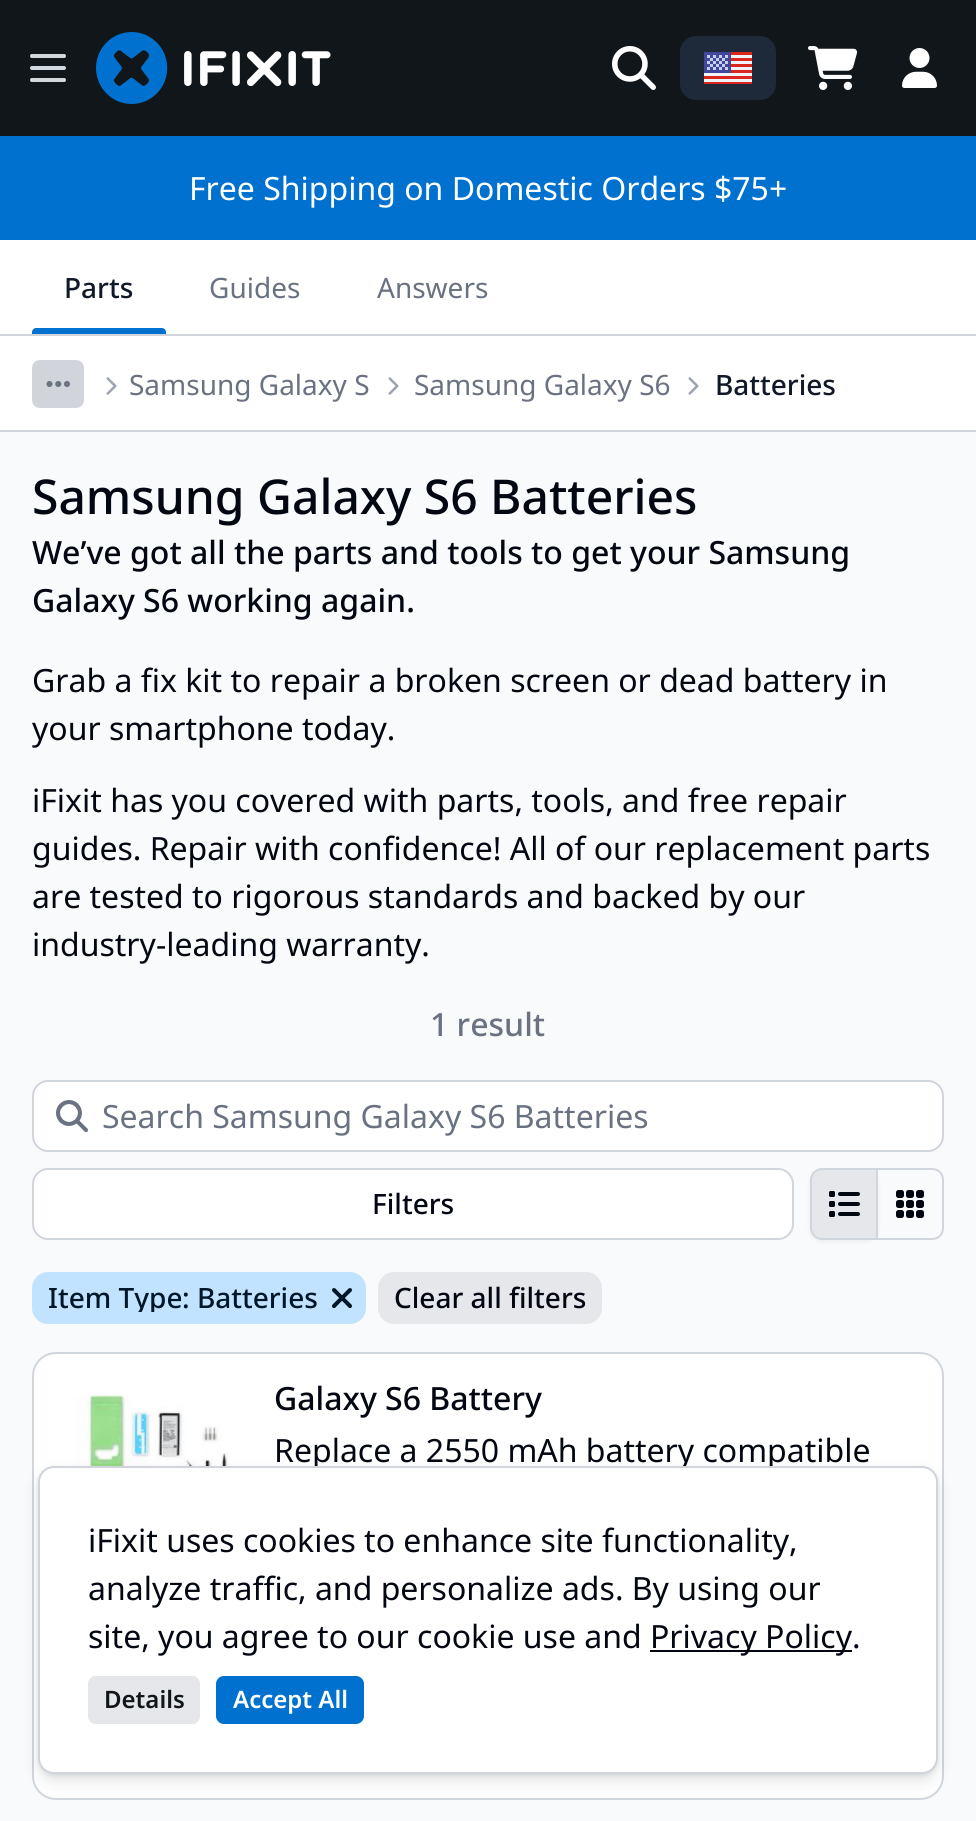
import math
import cairo


def use_color(cr, r, g, b):
  cr.set_source_rgb(r / 255, g / 255, b / 255)

def text(cr, x, y, s, family, size, color, bold=False, italic=False):
  cr.select_font_face(family, cairo.FONT_SLANT_ITALIC if italic else cairo.FONT_SLANT_NORMAL, cairo.FONT_WEIGHT_BOLD if bold else cairo.FONT_WEIGHT_NORMAL)
  cr.set_font_size(size)
  use_color(cr, *color)
  cr.move_to(x, y)
  cr.show_text(s)

def box(cr, x, y, w, h, *color):
  use_color(cr, *color)
  cr.rectangle(x, y, w, h)
  cr.fill()

def round_rect(cr, x, y, w, h, r):
  cr.new_sub_path()
  for i, (u, v) in enumerate([(x + w - r, y + h - r), (x + r, y + h - r), (x + r, y + r), (x + w - r, y + r)]):
    cr.arc(u, v, r, i * math.pi / 2, (i + 1) * math.pi / 2)
  cr.close_path()

def shadow(cr, x, y, w, h, r, blur, alpha):
  cr.push_group_with_content(cairo.CONTENT_ALPHA)
  cr.set_operator(cairo.OPERATOR_SOURCE)
  for i in range(15, -16, -2):
    e = blur * i / 6
    if min(w, h) + 2 * e > 0:
      cr.set_source_rgba(0, 0, 0, alpha * math.erfc((i - 1) / 8.5) / 2)
      round_rect(cr, x - e, y - e, w + 2 * e, h + 2 * e, max(0, min(r + e + blur * .6, min(w, h) / 2 + e)))
      cr.fill()
  cr.mask(cr.pop_group())

def picture(cr, path, x, y, w, h):
  cr.save()
  cr.set_source_surface(cairo.ImageSurface.create_from_png(path), x, y)
  cr.rectangle(x, y, w, h)
  cr.fill()
  cr.restore()

def draw(cr):
  use_color(cr, 249, 250, 251)
  cr.paint()
  box(cr, 0, 0, 976, 136, 17, 22, 26)
  picture(cr, "img_01.png", 30, 54, 36, 28)
  picture(cr, "img_02.png", 96, 32, 235, 72)
  picture(cr, "img_03.png", 612, 46, 44, 44)
  use_color(cr, 30, 41, 57)
  round_rect(cr, 680, 36, 96, 64, 16)
  cr.fill()
  picture(cr, "img_04.png", 704, 52, 48, 32)
  picture(cr, "img_05.png", 808, 46, 50, 44)
  picture(cr, "img_06.png", 902, 48, 35, 40)
  box(cr, 0, 136, 976, 104, 0, 113, 206)
  box(cr, 0, 240, 976, 94, 255, 255, 255)
  box(cr, 0, 334, 976, 2, 209, 213, 219)
  use_color(cr, 0, 113, 206)
  cr.new_path()
  cr.move_to(36, 328)
  cr.line_to(162, 328)
  cr.curve_to(164, 328, 166, 330, 166, 332)
  cr.line_to(166, 334)
  cr.line_to(32, 334)
  cr.line_to(32, 332)
  cr.curve_to(32, 330, 34, 328, 36, 328)
  cr.close_path()
  cr.fill()
  box(cr, 0, 336, 976, 94, 255, 255, 255)
  box(cr, 0, 430, 976, 2, 209, 213, 219)
  round_rect(cr, 32, 360, 52, 48, 8)
  cr.fill()
  picture(cr, "img_07.png", 46, 381, 24, 6)
  picture(cr, "img_08.png", 106, 377, 11, 18)
  picture(cr, "img_08.png", 388, 377, 11, 18)
  picture(cr, "img_08.png", 688, 377, 11, 18)
  use_color(cr, 255, 255, 255)
  round_rect(cr, 33, 1081, 910, 70, 15)
  cr.fill_preserve()
  use_color(cr, 209, 213, 220)
  cr.stroke()
  picture(cr, "img_09.png", 56, 1100, 32, 32)
  use_color(cr, 255, 255, 255)
  round_rect(cr, 33, 1169, 760, 70, 15)
  cr.fill_preserve()
  use_color(cr, 209, 213, 220)
  cr.stroke()
  use_color(cr, 0, 0, 0)
  shadow(cr, 810, 1170, 68, 72, 12, 2, 0.05)
  use_color(cr, 229, 231, 235)
  cr.new_path()
  cr.move_to(822, 1169)
  cr.line_to(877, 1169)
  cr.line_to(877, 1239)
  cr.line_to(822, 1239)
  cr.curve_to(816, 1239, 811, 1234, 811, 1228)
  cr.line_to(811, 1180)
  cr.curve_to(811, 1174, 816, 1169, 822, 1169)
  cr.close_path()
  cr.fill_preserve()
  use_color(cr, 209, 213, 220)
  cr.stroke()
  picture(cr, "img_10.png", 829, 1191, 31, 26)
  cr.set_fill_rule(cairo.FILL_RULE_EVEN_ODD)
  cr.new_path()
  cr.move_to(878, 1168)
  cr.line_to(932, 1168)
  cr.curve_to(939, 1168, 944, 1173, 944, 1180)
  cr.line_to(944, 1228)
  cr.curve_to(944, 1235, 939, 1240, 932, 1240)
  cr.line_to(878, 1240)
  cr.close_path()
  cr.move_to(878, 1170)
  cr.line_to(932, 1170)
  cr.curve_to(938, 1170, 942, 1174, 942, 1180)
  cr.line_to(942, 1228)
  cr.curve_to(942, 1234, 938, 1238, 932, 1238)
  cr.line_to(878, 1238)
  cr.close_path()
  cr.fill()
  picture(cr, "img_11.png", 896, 1190, 28, 28)
  use_color(cr, 194, 227, 255)
  round_rect(cr, 32, 1272, 334, 52, 16)
  cr.fill()
  picture(cr, "img_12.png", 332, 1288, 20, 20)
  use_color(cr, 229, 231, 235)
  round_rect(cr, 378, 1272, 224, 52, 16)
  cr.fill()
  use_color(cr, 255, 255, 255)
  round_rect(cr, 33, 1353, 910, 446, 23)
  cr.fill_preserve()
  use_color(cr, 209, 213, 220)
  cr.stroke()
  picture(cr, "img_13.png", 75, 1394, 155, 72)
  use_color(cr, 17, 22, 26)
  shadow(cr, 38, 1474, 900, 308, 16, 8, 0.1)
  shadow(cr, 38, 1468, 900, 308, 16, 2, 0.1)
  text(cr, 189, 200, "Free Shipping on Domestic Orders $75+", "Noto Sans", 32, (255, 255, 255))
  text(cr, 64, 298, "Parts", "Noto Sans Medium", 28, (17, 24, 39))
  text(cr, 209, 298, "Guides", "Noto Sans", 28, (106, 114, 130))
  text(cr, 377, 298, "Answers", "Noto Sans", 28, (106, 114, 130))
  text(cr, 129, 395, "Samsung Galaxy S", "Noto Sans", 28, (106, 114, 130))
  text(cr, 414, 395, "Samsung Galaxy S6", "Noto Sans", 28, (106, 114, 130))
  text(cr, 715, 395, "Batteries", "Noto Sans Medium", 28, (17, 24, 39))
  text(cr, 32, 514, "Samsung Galaxy S6 Batteries", "Noto Sans Medium", 48, (3, 7, 18))
  text(cr, 32, 564, "We’ve got all the parts and tools to get your Samsung", "Noto Sans Medium", 32, (3, 7, 18))
  text(cr, 32, 612, "Galaxy S6 working again.", "Noto Sans Medium", 32, (3, 7, 18))
  text(cr, 32, 692, "Grab a fix kit to repair a broken screen or dead battery in", "Noto Sans", 32, (3, 7, 18))
  text(cr, 32, 740, "your smartphone today.", "Noto Sans", 32, (3, 7, 18))
  text(cr, 32, 812, "iFixit has you covered with parts, tools, and free repair", "Noto Sans", 32, (3, 7, 18))
  text(cr, 32, 860, "guides. Repair with confidence! All of our replacement parts", "Noto Sans", 32, (3, 7, 18))
  text(cr, 32, 908, "are tested to rigorous standards and backed by our", "Noto Sans", 32, (3, 7, 18))
  text(cr, 32, 956, "industry-leading warranty.", "Noto Sans", 32, (3, 7, 18))
  text(cr, 430, 1036, "1 result", "Noto Sans Medium", 32, (106, 114, 130))
  text(cr, 102, 1128, "Search Samsung Galaxy S6 Batteries", "Noto Sans", 32, (106, 114, 130))
  text(cr, 372, 1214, "Filters", "Noto Sans Medium", 28, (3, 7, 18))
  cr.save()
  cr.set_fill_rule(cairo.FILL_RULE_WINDING)
  cr.rectangle(48, 1284, 270, 28)
  cr.clip()
  text(cr, 48, 1308, "Item Type", "Noto Sans Medium", 28, (0, 22, 41))
  cr.restore()
  text(cr, 182, 1308, ": Batteries", "Noto Sans Medium", 28, (0, 22, 41))
  text(cr, 394, 1308, "Clear all filters", "Noto Sans Medium", 28, (3, 7, 18))
  text(cr, 274, 1410, "Galaxy S6 Battery", "Noto Sans Medium", 32, (3, 7, 18))
  text(cr, 274, 1462, "Replace a 2550 mAh battery compatible", "Noto Sans", 32, (3, 7, 18))
  use_color(cr, 255, 255, 255)
  round_rect(cr, 39, 1467, 898, 306, 15)
  cr.fill_preserve()
  use_color(cr, 209, 213, 219)
  cr.stroke()
  text(cr, 88, 1552, "iFixit uses cookies to enhance site functionality,", "Noto Sans", 32, (3, 7, 18))
  text(cr, 88, 1600, "analyze traffic, and personalize ads. By using our", "Noto Sans", 32, (3, 7, 18))
  text(cr, 88, 1648, "site, you agree to our cookie use and", "Noto Sans", 32, (3, 7, 18))
  box(cr, 650, 1650, 202, 2, 3, 7, 18)
  text(cr, 650, 1648, "Privacy Policy.", "Noto Sans", 32, (3, 7, 18))
  use_color(cr, 229, 231, 235)
  round_rect(cr, 88, 1676, 112, 48, 8)
  cr.fill()
  text(cr, 104, 1708, "Details", "Noto Sans SemiBold", 24, (17, 22, 26))
  use_color(cr, 0, 113, 206)
  round_rect(cr, 216, 1676, 148, 48, 8)
  cr.fill()
  text(cr, 233, 1708, "Accept All", "Noto Sans SemiBold", 24, (255, 255, 255))


surface = cairo.ImageSurface(cairo.FORMAT_RGB24, 976, 1821)
cr = cairo.Context(surface)
options = cairo.FontOptions()
options.set_hint_metrics(cairo.HINT_METRICS_OFF)
options.set_hint_style(cairo.HINT_STYLE_NONE)
cr.set_font_options(options)
cr.set_miter_limit(4)
draw(cr)
surface.write_to_png("out.png")
